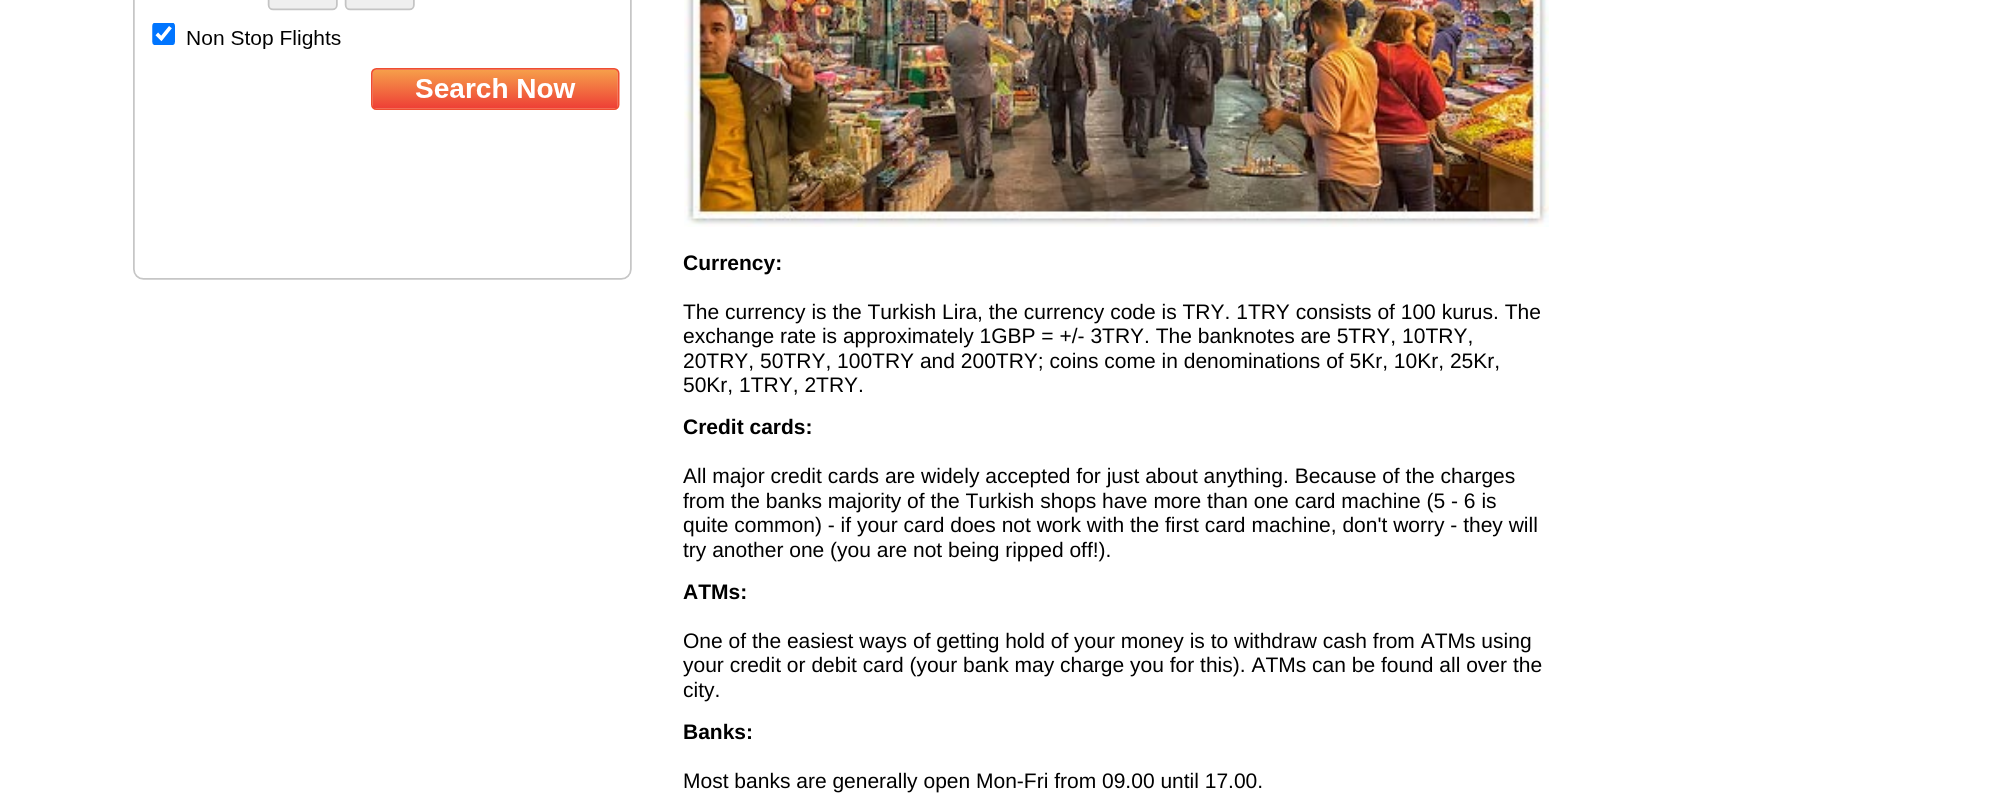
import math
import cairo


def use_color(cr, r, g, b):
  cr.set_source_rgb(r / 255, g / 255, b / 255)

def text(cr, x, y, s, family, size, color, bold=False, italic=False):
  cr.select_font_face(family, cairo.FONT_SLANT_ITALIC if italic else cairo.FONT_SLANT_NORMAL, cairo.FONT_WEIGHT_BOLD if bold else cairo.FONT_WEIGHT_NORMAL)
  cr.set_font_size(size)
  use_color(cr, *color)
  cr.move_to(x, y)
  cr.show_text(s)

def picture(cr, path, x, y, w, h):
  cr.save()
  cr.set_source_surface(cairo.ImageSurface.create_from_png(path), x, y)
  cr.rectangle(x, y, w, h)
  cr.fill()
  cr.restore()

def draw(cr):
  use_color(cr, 255, 255, 255)
  cr.paint()
  picture(cr, "img_01.png", 133, 0, 499, 280)
  picture(cr, "img_02.png", 684, 0, 865, 227)
  text(cr, 683, 270, "Currency:", "Liberation Sans", 21, (0, 0, 0), bold=True)
  text(cr, 683, 319, "The currency is the Turkish Lira, the currency code is TRY. 1TRY consists of 100 kurus. The", "Liberation Sans", 21, (0, 0, 0))
  text(cr, 683, 343, "exchange rate is approximately 1GBP = +/- 3TRY. The banknotes are 5TRY, 10TRY,", "Liberation Sans", 21, (0, 0, 0))
  text(cr, 683, 368, "20TRY, 50TRY, 100TRY and 200TRY; coins come in denominations of 5Kr, 10Kr, 25Kr,", "Liberation Sans", 21, (0, 0, 0))
  text(cr, 683, 392, "50Kr, 1TRY, 2TRY.", "Liberation Sans", 21, (0, 0, 0))
  text(cr, 683, 434, "Credit cards:", "Liberation Sans", 21, (0, 0, 0), bold=True)
  text(cr, 683, 483, "All major credit cards are widely accepted for just about anything. Because of the charges", "Liberation Sans", 21, (0, 0, 0))
  text(cr, 683, 508, "from the banks majority of the Turkish shops have more than one card machine (5 - 6 is", "Liberation Sans", 21, (0, 0, 0))
  text(cr, 683, 532, "quite common) - if your card does not work with the first card machine, don't worry - they will", "Liberation Sans", 21, (0, 0, 0))
  text(cr, 683, 557, "try another one (you are not being ripped off!).", "Liberation Sans", 21, (0, 0, 0))
  text(cr, 683, 599, "ATMs:", "Liberation Sans", 21, (0, 0, 0), bold=True)
  text(cr, 683, 648, "One of the easiest ways of getting hold of your money is to withdraw cash from ATMs using", "Liberation Sans", 21, (0, 0, 0))
  text(cr, 683, 672, "your credit or debit card (your bank may charge you for this). ATMs can be found all over the", "Liberation Sans", 21, (0, 0, 0))
  text(cr, 683, 697, "city.", "Liberation Sans", 21, (0, 0, 0))
  text(cr, 683, 739, "Banks:", "Liberation Sans", 21, (0, 0, 0), bold=True)
  text(cr, 683, 788, "Most banks are generally open Mon-Fri from 09.00 until 17.00.", "Liberation Sans", 21, (0, 0, 0))


surface = cairo.ImageSurface(cairo.FORMAT_RGB24, 2013, 799)
cr = cairo.Context(surface)
options = cairo.FontOptions()
options.set_hint_metrics(cairo.HINT_METRICS_OFF)
options.set_hint_style(cairo.HINT_STYLE_NONE)
cr.set_font_options(options)
cr.set_miter_limit(4)
draw(cr)
surface.write_to_png("out.png")
